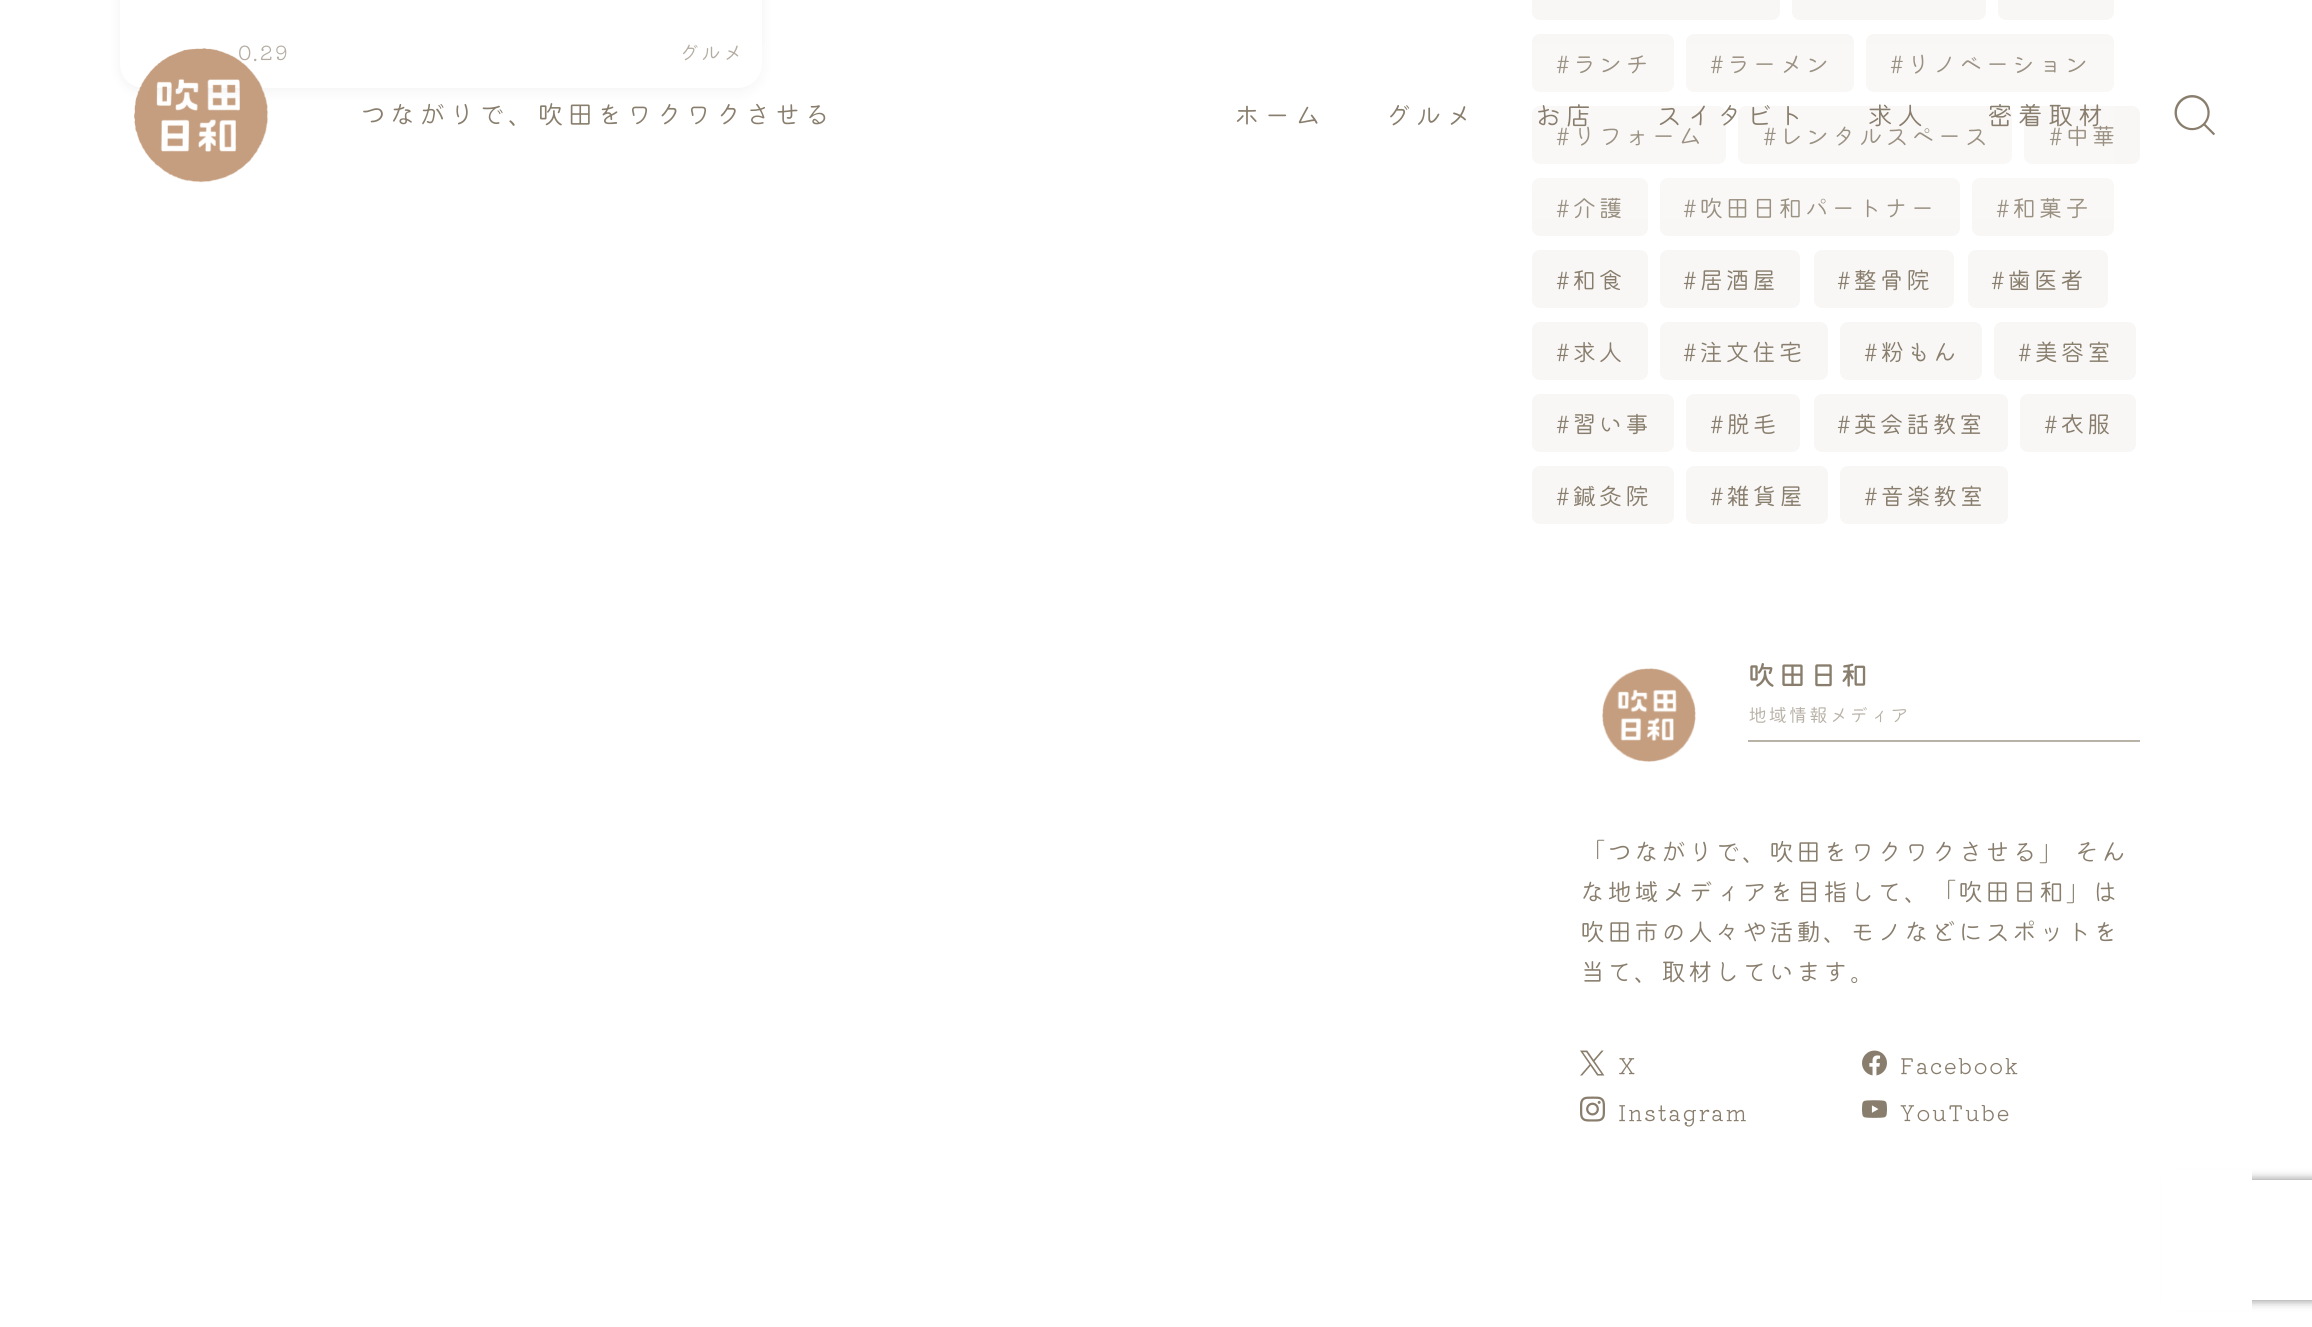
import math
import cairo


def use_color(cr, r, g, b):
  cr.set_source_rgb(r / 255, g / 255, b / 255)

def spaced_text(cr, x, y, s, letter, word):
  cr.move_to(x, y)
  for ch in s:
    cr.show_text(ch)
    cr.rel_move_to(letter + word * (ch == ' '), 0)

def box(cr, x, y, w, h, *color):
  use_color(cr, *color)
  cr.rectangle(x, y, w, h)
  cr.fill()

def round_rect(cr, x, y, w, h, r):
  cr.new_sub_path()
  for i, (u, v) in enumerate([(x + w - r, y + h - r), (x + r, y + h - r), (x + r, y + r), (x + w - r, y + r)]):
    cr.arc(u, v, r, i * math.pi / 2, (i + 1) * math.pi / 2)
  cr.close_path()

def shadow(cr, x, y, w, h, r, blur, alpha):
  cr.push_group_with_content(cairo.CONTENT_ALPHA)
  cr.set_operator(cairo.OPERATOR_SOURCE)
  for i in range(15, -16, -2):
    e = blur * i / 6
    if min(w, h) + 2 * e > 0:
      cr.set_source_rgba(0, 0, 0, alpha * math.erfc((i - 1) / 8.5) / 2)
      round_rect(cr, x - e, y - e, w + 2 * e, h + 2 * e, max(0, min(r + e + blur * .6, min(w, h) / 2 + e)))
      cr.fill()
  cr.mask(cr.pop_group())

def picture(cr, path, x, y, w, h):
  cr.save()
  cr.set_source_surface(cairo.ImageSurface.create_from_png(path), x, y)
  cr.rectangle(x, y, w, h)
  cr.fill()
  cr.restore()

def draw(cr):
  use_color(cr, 255, 255, 255)
  cr.paint()
  cr.save()
  cr.set_fill_rule(cairo.FILL_RULE_EVEN_ODD)
  cr.new_path()
  cr.move_to(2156, 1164)
  cr.line_to(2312, 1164)
  cr.line_to(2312, 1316)
  cr.line_to(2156, 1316)
  cr.close_path()
  cr.move_to(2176, 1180)
  cr.line_to(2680, 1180)
  cr.curve_to(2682, 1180, 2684, 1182, 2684, 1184)
  cr.line_to(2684, 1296)
  cr.curve_to(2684, 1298, 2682, 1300, 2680, 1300)
  cr.line_to(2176, 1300)
  cr.curve_to(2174, 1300, 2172, 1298, 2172, 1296)
  cr.line_to(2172, 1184)
  cr.curve_to(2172, 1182, 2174, 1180, 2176, 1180)
  cr.close_path()
  cr.clip()
  use_color(cr, 128, 128, 128)
  shadow(cr, 2172, 1180, 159, 120, 4, 5, 1)
  cr.restore()
  box(cr, 2162, 1170, 90, 140, 255, 255, 255)
  use_color(cr, 170, 170, 170)
  shadow(cr, 120, -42, 642, 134, 24, 6, 0.15)
  use_color(cr, 255, 255, 255)
  round_rect(cr, 120, -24, 642, 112, 24)
  cr.fill()
  use_color(cr, 248, 247, 246)
  round_rect(cr, 1532, -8, 248, 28, 8)
  cr.fill()
  round_rect(cr, 1792, -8, 194, 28, 8)
  cr.fill()
  round_rect(cr, 1998, -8, 116, 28, 8)
  cr.fill()
  round_rect(cr, 1532, 34, 142, 58, 8)
  cr.fill()
  round_rect(cr, 1686, 34, 168, 58, 8)
  cr.fill()
  round_rect(cr, 1866, 34, 248, 58, 8)
  cr.fill()
  round_rect(cr, 1532, 106, 194, 58, 8)
  cr.fill()
  round_rect(cr, 1738, 106, 274, 58, 8)
  cr.fill()
  round_rect(cr, 2024, 106, 116, 58, 8)
  cr.fill()
  round_rect(cr, 1532, 178, 116, 58, 8)
  cr.fill()
  round_rect(cr, 1660, 178, 300, 58, 8)
  cr.fill()
  round_rect(cr, 1972, 178, 142, 58, 8)
  cr.fill()
  round_rect(cr, 1532, 250, 116, 58, 8)
  cr.fill()
  round_rect(cr, 1660, 250, 140, 58, 8)
  cr.fill()
  round_rect(cr, 1814, 250, 140, 58, 8)
  cr.fill()
  round_rect(cr, 1968, 250, 140, 58, 8)
  cr.fill()
  round_rect(cr, 1532, 322, 116, 58, 8)
  cr.fill()
  round_rect(cr, 1660, 322, 168, 58, 8)
  cr.fill()
  round_rect(cr, 1840, 322, 142, 58, 8)
  cr.fill()
  round_rect(cr, 1994, 322, 142, 58, 8)
  cr.fill()
  round_rect(cr, 1532, 394, 142, 58, 8)
  cr.fill()
  round_rect(cr, 1686, 394, 114, 58, 8)
  cr.fill()
  round_rect(cr, 1814, 394, 194, 58, 8)
  cr.fill()
  round_rect(cr, 2020, 394, 116, 58, 8)
  cr.fill()
  round_rect(cr, 1532, 466, 142, 58, 8)
  cr.fill()
  round_rect(cr, 1686, 466, 142, 58, 8)
  cr.fill()
  round_rect(cr, 1840, 466, 168, 58, 8)
  cr.fill()
  picture(cr, "img_01.png", 1602, 668, 94, 94)
  box(cr, 1748, 740, 392, 2, 184, 178, 167)
  picture(cr, "img_02.png", 1580, 1050, 25, 26)
  picture(cr, "img_03.png", 1862, 1050, 25, 26)
  picture(cr, "img_04.png", 1580, 1096, 25, 26)
  picture(cr, "img_05.png", 1862, 1100, 25, 18)
  picture(cr, "img_07.png", 2174, 95, 41, 41)
  cr.select_font_face("Kiwi Maru Light")
  cr.set_font_size(20)
  use_color(cr, 167, 158, 146)
  spaced_text(cr, 238, 60, "0.29", 2.4, 0)
  spaced_text(cr, 679, 60, "グルメ", 1.75, 0)
  cr.set_font_size(24)
  use_color(cr, 137, 126, 109)
  spaced_text(cr, 1556, 73, "#ランチ", 2.4, 0)
  spaced_text(cr, 1710, 73, "#ラーメン", 2.4, 0)
  spaced_text(cr, 1890, 73, "#リノベーション", 2.4, 0)
  spaced_text(cr, 1556, 145, "#リフォーム", 2.4, 0)
  spaced_text(cr, 1763, 145, "#レンタルスペース", 2.4, 0)
  spaced_text(cr, 2049, 145, "#中華", 2.4, 0)
  spaced_text(cr, 1556, 217, "#介護", 2.4, 0)
  spaced_text(cr, 1683, 217, "#吹田日和パートナー", 2.4, 0)
  spaced_text(cr, 1996, 217, "#和菓子", 2.4, 0)
  spaced_text(cr, 1556, 289, "#和食", 2.4, 0)
  spaced_text(cr, 1683, 289, "#居酒屋", 2.4, 0)
  spaced_text(cr, 1837, 289, "#整骨院", 2.4, 0)
  spaced_text(cr, 1991, 289, "#歯医者", 2.4, 0)
  spaced_text(cr, 1556, 361, "#求人", 2.4, 0)
  spaced_text(cr, 1683, 361, "#注文住宅", 2.4, 0)
  spaced_text(cr, 1864, 361, "#粉もん", 2.4, 0)
  spaced_text(cr, 2018, 361, "#美容室", 2.4, 0)
  spaced_text(cr, 1556, 433, "#習い事", 2.4, 0)
  spaced_text(cr, 1710, 433, "#脱毛", 2.4, 0)
  spaced_text(cr, 1837, 433, "#英会話教室", 2.4, 0)
  spaced_text(cr, 2044, 433, "#衣服", 2.4, 0)
  spaced_text(cr, 1556, 505, "#鍼灸院", 2.4, 0)
  spaced_text(cr, 1710, 505, "#雑貨屋", 2.4, 0)
  spaced_text(cr, 1864, 505, "#音楽教室", 2.4, 0)
  cr.select_font_face("Kiwi Maru Medium")
  cr.set_font_size(27)
  spaced_text(cr, 1748, 685, "吹田日和", 4, 0)
  cr.select_font_face("Kiwi Maru Light")
  cr.set_font_size(19)
  use_color(cr, 184, 178, 167)
  spaced_text(cr, 1748, 722, "地域情報メディア", 1.25, 0)
  cr.set_font_size(25)
  use_color(cr, 137, 126, 109)
  spaced_text(cr, 1580, 861, "「つながりで、吹田をワクワクさせる」 そん", 2, 0)
  spaced_text(cr, 1580, 901, "な地域メディアを目指して、「吹田日和」は", 2, 0)
  spaced_text(cr, 1580, 941, "吹田市の人々や活動、モノなどにスポットを", 2, 0)
  spaced_text(cr, 1580, 981, "当て、取材しています。", 2, 0)
  cr.set_font_size(22)
  spaced_text(cr, 1618, 1074, "X", 1.75, 0)
  spaced_text(cr, 1900, 1074, "Facebook", 1.75, 0)
  spaced_text(cr, 1618, 1121, "Instagram", 1.75, 0)
  spaced_text(cr, 1900, 1121, "YouTube", 1.75, 0)
  cr.set_source_rgba(1, 1, 1, 0.15)
  cr.rectangle(239, 44, 1875, 175)
  cr.fill()
  picture(cr, "img_06.png", 134, 48, 135, 135)
  cr.set_font_size(26)
  use_color(cr, 137, 126, 109)
  spaced_text(cr, 360, 124, "つながりで、吹田をワクワクさせる", 3.6, 0)
  spaced_text(cr, 1234, 125, "ホーム", 4.25, 0)
  spaced_text(cr, 1385, 125, "グルメ", 4.25, 0)
  spaced_text(cr, 1535, 125, "お店", 4.25, 0)
  spaced_text(cr, 1656, 125, "スイタビト", 4.25, 0)
  spaced_text(cr, 1867, 125, "求人", 4.25, 0)
  spaced_text(cr, 1987, 125, "密着取材", 4.25, 0)


surface = cairo.ImageSurface(cairo.FORMAT_RGB24, 2312, 1327)
cr = cairo.Context(surface)
options = cairo.FontOptions()
options.set_hint_metrics(cairo.HINT_METRICS_OFF)
options.set_hint_style(cairo.HINT_STYLE_NONE)
cr.set_font_options(options)
cr.set_miter_limit(4)
draw(cr)
surface.write_to_png("out.png")
